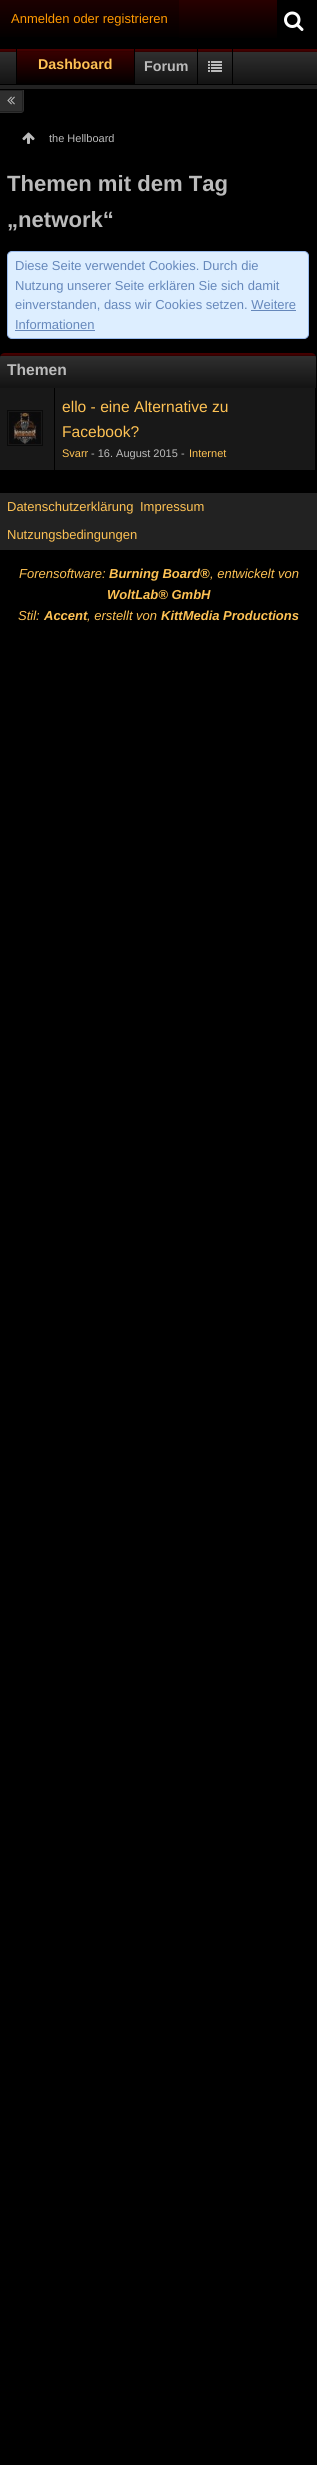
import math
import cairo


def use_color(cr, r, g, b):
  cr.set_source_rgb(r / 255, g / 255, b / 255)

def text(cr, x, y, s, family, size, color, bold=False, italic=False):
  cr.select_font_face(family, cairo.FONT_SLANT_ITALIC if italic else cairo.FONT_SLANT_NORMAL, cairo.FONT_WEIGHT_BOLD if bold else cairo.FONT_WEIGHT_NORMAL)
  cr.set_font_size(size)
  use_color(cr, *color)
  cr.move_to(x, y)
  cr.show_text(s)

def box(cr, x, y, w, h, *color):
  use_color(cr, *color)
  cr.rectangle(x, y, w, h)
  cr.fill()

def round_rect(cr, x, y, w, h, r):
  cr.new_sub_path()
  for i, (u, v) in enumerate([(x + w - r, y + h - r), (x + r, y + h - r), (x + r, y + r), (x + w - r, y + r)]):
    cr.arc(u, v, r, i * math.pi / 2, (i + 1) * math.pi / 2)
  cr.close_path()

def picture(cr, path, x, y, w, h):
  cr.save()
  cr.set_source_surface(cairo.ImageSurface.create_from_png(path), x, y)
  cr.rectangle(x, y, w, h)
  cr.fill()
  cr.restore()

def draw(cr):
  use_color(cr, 0, 0, 0)
  cr.paint()
  gradient = cairo.LinearGradient(159, 0, 159, 41)
  gradient.add_color_stop_rgba(0, 0.157, 0, 0, 1)
  gradient.add_color_stop_rgba(1, 0, 0, 0, 1)
  cr.set_source(gradient)
  cr.rectangle(179, 0, 98, 38)
  cr.fill()
  gradient = cairo.LinearGradient(159, 0, 159, 41)
  gradient.add_color_stop_rgba(0, 0.11, 0, 0, 1)
  gradient.add_color_stop_rgba(1, 0, 0, 0, 1)
  cr.set_source(gradient)
  cr.rectangle(0, 0, 179, 37)
  cr.fill()
  picture(cr, "img_01.png", 284, 11, 20, 20)
  gradient = cairo.LinearGradient(159, 49, 159, 84)
  gradient.add_color_stop_rgba(0.03, 0.275, 0, 0, 1)
  gradient.add_color_stop_rgba(0.06, 0.231, 0, 0, 1)
  gradient.add_color_stop_rgba(0.09, 0.149, 0, 0, 1)
  gradient.add_color_stop_rgba(0.09, 0.184, 0.184, 0.184, 1)
  gradient.add_color_stop_rgba(1, 0.075, 0.075, 0.075, 1)
  cr.set_source(gradient)
  cr.rectangle(0, 49, 317, 35)
  cr.fill()
  gradient = cairo.LinearGradient(76, 49, 76, 85)
  gradient.add_color_stop_rgba(0.03, 0.275, 0, 0, 1)
  gradient.add_color_stop_rgba(0.06, 0.231, 0, 0, 1)
  gradient.add_color_stop_rgba(0.08, 0.149, 0, 0, 1)
  gradient.add_color_stop_rgba(0.08, 0.216, 0, 0, 1)
  gradient.add_color_stop_rgba(1, 0, 0, 0, 1)
  cr.set_source(gradient)
  cr.rectangle(17, 52, 117, 32)
  cr.fill()
  box(cr, 134, 49, 1, 36, 0, 0, 0)
  box(cr, 16, 49, 1, 36, 0, 0, 0)
  box(cr, 197, 49, 1, 35, 0, 0, 0)
  box(cr, 232, 49, 1, 35, 0, 0, 0)
  picture(cr, "img_02.png", 208, 61, 14, 11)
  box(cr, 0, 85, 317, 4, 34, 34, 34)
  use_color(cr, 47, 47, 47)
  cr.new_path()
  cr.move_to(-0.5, 90.5)
  cr.line_to(22.5, 90.5)
  cr.line_to(22.5, 110)
  cr.curve_to(22.5, 111, 22, 111.5, 21, 111.5)
  cr.line_to(-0.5, 111.5)
  cr.close_path()
  cr.fill_preserve()
  use_color(cr, 32, 32, 32)
  cr.set_line_width(1)
  cr.stroke()
  use_color(cr, 47, 47, 47)
  cr.set_fill_rule(cairo.FILL_RULE_EVEN_ODD)
  cr.new_path()
  cr.move_to(-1, 90)
  cr.line_to(24, 90)
  cr.line_to(24, 110)
  cr.curve_to(24, 111.5, 22.5, 113, 21, 113)
  cr.line_to(-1, 113)
  cr.close_path()
  cr.move_to(-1, 90)
  cr.line_to(23, 90)
  cr.line_to(23, 110)
  cr.curve_to(23, 111, 22, 112, 21, 112)
  cr.line_to(-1, 112)
  cr.close_path()
  cr.fill()
  picture(cr, "img_03.png", 7, 96, 8, 9)
  picture(cr, "img_04.png", 22, 132, 13, 12)
  use_color(cr, 221, 238, 255)
  round_rect(cr, 7.5, 251.5, 301, 87, 4.5)
  cr.fill_preserve()
  use_color(cr, 153, 187, 238)
  cr.stroke()
  box(cr, 251, 310, 45, 1, 102, 136, 187)
  box(cr, 15, 330, 80, 1, 102, 136, 187)
  gradient = cairo.LinearGradient(158, 353, 158, 388)
  gradient.add_color_stop_rgba(0.03, 0.275, 0, 0, 1)
  gradient.add_color_stop_rgba(0.06, 0.231, 0, 0, 1)
  gradient.add_color_stop_rgba(0.09, 0.149, 0, 0, 1)
  gradient.add_color_stop_rgba(0.09, 0.184, 0.184, 0.184, 1)
  gradient.add_color_stop_rgba(1, 0.075, 0.075, 0.075, 1)
  cr.set_source(gradient)
  cr.new_path()
  cr.move_to(5, 353)
  cr.line_to(311, 353)
  cr.curve_to(314, 353, 316, 355, 316, 358)
  cr.line_to(316, 388)
  cr.line_to(0, 388)
  cr.line_to(0, 358)
  cr.curve_to(0, 355, 2, 353, 5, 353)
  cr.close_path()
  cr.fill()
  box(cr, 0, 388, 54, 82, 24, 24, 24)
  cr.rectangle(7.5, 410.5, 35, 35)
  use_color(cr, 10, 10, 10)
  cr.stroke()
  picture(cr, "img_05.png", 9, 412, 32, 32)
  box(cr, 55, 388, 260, 82, 24, 24, 24)
  box(cr, 0, 493, 317, 57, 34, 34, 34)
  text(cr, 11, 23, "Anmelden oder registrieren", "Liberation Sans", 13, (255, 153, 0))
  text(cr, 38, 69, "Dashboard", "Liberation Sans", 14.25, (254, 194, 84), bold=True)
  text(cr, 144, 71, "Forum", "Liberation Sans", 14.25, (187, 187, 187), bold=True)
  text(cr, 49, 142, "the Hellboard", "Liberation Sans", 11, (187, 187, 187))
  text(cr, 7, 191, "Themen mit dem Tag", "Liberation Sans", 22.1, (187, 187, 187), bold=True)
  text(cr, 7, 227, "„network“", "Liberation Sans", 22.1, (187, 187, 187), bold=True)
  text(cr, 15, 270, "Diese Seite verwendet Cookies. Durch die", "Liberation Sans", 13, (102, 136, 187))
  text(cr, 15, 290, "Nutzung unserer Seite erklären Sie sich damit", "Liberation Sans", 13, (102, 136, 187))
  text(cr, 15, 309, "einverstanden, dass wir Cookies setzen. Weitere", "Liberation Sans", 13, (102, 136, 187))
  text(cr, 15, 329, "Informationen", "Liberation Sans", 13, (102, 136, 187))
  text(cr, 7, 375, "Themen", "Liberation Sans", 15.6, (187, 187, 187), bold=True)
  text(cr, 62, 412, "ello - eine Alternative zu", "Liberation Sans", 15.6, (254, 194, 84))
  text(cr, 62, 437, "Facebook?", "Liberation Sans", 15.6, (254, 194, 84))
  text(cr, 62, 457, "Svarr", "Liberation Sans", 11, (254, 194, 84))
  text(cr, 91, 457, "- 16. August 2015 -", "Liberation Sans", 11, (187, 187, 187))
  text(cr, 189, 457, "Internet", "Liberation Sans", 11, (254, 194, 84))
  text(cr, 7, 511, "Datenschutzerklärung", "Liberation Sans", 13, (254, 194, 84))
  text(cr, 140, 511, "Impressum", "Liberation Sans", 13, (254, 194, 84))
  text(cr, 7, 539, "Nutzungsbedingungen", "Liberation Sans", 13, (254, 194, 84))
  text(cr, 19, 578, "Forensoftware:", "Liberation Sans", 13, (254, 194, 84), italic=True)
  text(cr, 109, 578, "Burning Board®", "Liberation Sans", 13, (254, 194, 84), bold=True, italic=True)
  text(cr, 210, 578, ", entwickelt von", "Liberation Sans", 13, (254, 194, 84), italic=True)
  text(cr, 107, 599, "WoltLab® GmbH", "Liberation Sans", 13, (254, 194, 84), bold=True, italic=True)
  text(cr, 18, 620, "Stil:", "Liberation Sans", 13, (254, 194, 84), italic=True)
  text(cr, 44, 620, "Accent", "Liberation Sans", 13, (254, 194, 84), bold=True, italic=True)
  text(cr, 87, 620, ", erstellt von", "Liberation Sans", 13, (254, 194, 84), italic=True)
  text(cr, 161, 620, "KittMedia Productions", "Liberation Sans", 13, (254, 194, 84), bold=True, italic=True)


surface = cairo.ImageSurface(cairo.FORMAT_RGB24, 317, 2465)
cr = cairo.Context(surface)
options = cairo.FontOptions()
options.set_hint_metrics(cairo.HINT_METRICS_OFF)
options.set_hint_style(cairo.HINT_STYLE_NONE)
cr.set_font_options(options)
cr.set_miter_limit(4)
draw(cr)
surface.write_to_png("out.png")
